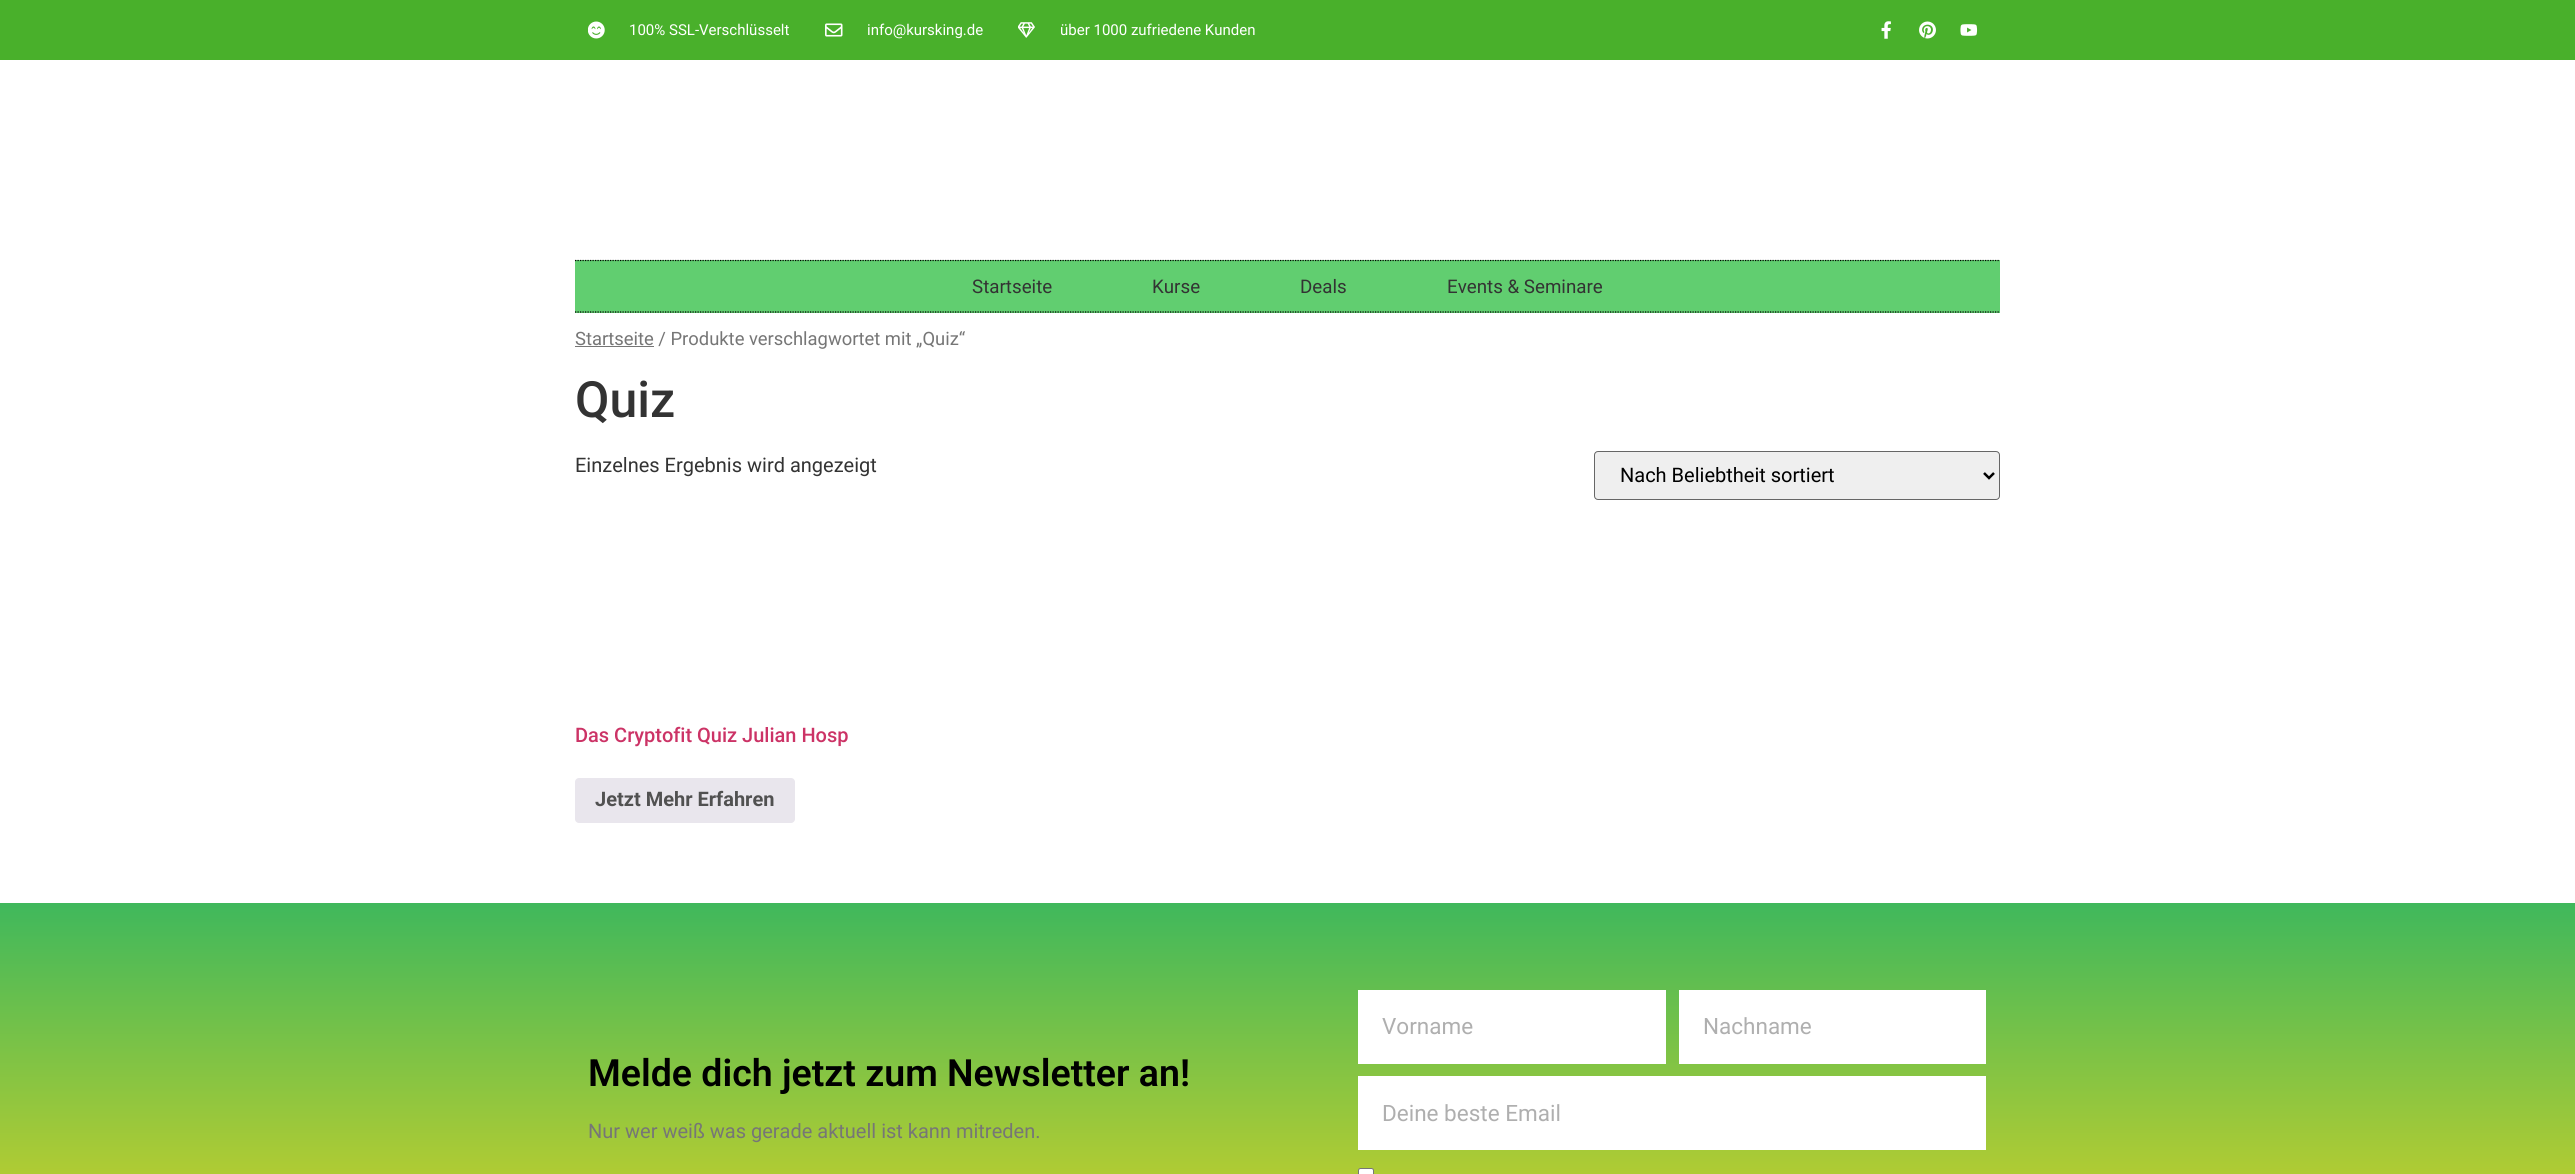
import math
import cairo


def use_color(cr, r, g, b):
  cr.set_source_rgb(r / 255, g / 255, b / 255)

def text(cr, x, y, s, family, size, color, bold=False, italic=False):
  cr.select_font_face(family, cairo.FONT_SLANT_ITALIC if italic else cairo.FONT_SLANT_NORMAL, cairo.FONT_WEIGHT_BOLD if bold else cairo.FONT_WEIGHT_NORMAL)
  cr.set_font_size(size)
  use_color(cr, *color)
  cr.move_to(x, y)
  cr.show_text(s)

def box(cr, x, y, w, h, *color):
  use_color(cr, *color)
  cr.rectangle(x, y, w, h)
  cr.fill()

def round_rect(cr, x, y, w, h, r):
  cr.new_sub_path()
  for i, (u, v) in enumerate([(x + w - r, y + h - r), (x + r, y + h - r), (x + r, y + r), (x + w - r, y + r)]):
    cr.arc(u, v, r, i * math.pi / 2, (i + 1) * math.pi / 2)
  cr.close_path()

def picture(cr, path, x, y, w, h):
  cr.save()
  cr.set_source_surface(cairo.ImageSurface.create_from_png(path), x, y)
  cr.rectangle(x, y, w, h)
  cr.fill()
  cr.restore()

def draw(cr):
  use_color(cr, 255, 255, 255)
  cr.paint()
  box(cr, 0, 0, 2575, 60, 73, 176, 43)
  picture(cr, "img_01.png", 588, 21, 17, 18)
  picture(cr, "img_02.png", 825, 23, 18, 14)
  picture(cr, "img_03.png", 1018, 22, 17, 16)
  picture(cr, "img_04.png", 1881, 21, 10, 18)
  picture(cr, "img_05.png", 1919, 21, 17, 18)
  picture(cr, "img_06.png", 1960, 24, 18, 12)
  box(cr, 575, 260, 1425, 53, 97, 206, 112)
  cr.new_path()
  cr.move_to(575, 260.5)
  cr.line_to(2000, 260.5)
  use_color(cr, 0, 0, 0)
  cr.set_line_width(1.2)
  cr.set_dash([1.25, 1.25])
  cr.stroke()
  cr.new_path()
  cr.move_to(575, 312)
  cr.line_to(2000, 312)
  cr.stroke()
  box(cr, 575, 346, 79, 1, 118, 118, 118)
  use_color(cr, 239, 239, 239)
  round_rect(cr, 1594.5, 451.5, 405, 48, 3.5)
  cr.fill_preserve()
  use_color(cr, 102, 102, 102)
  cr.set_line_width(1)
  cr.set_dash([])
  cr.stroke()
  cr.new_path()
  cr.move_to(1984, 473)
  cr.line_to(1989, 478)
  cr.line_to(1994, 473)
  use_color(cr, 0, 0, 0)
  cr.set_line_width(2.5)
  cr.stroke()
  use_color(cr, 233, 230, 237)
  round_rect(cr, 575, 778, 220, 45, 4)
  cr.fill()
  gradient = cairo.LinearGradient(1288, 902, 1288, 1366)
  gradient.add_color_stop_rgba(0, 0.247, 0.722, 0.361, 1)
  gradient.add_color_stop_rgba(1, 1, 0.851, 0.09, 1)
  cr.set_source(gradient)
  cr.rectangle(0, 903, 2575, 271)
  cr.fill()
  box(cr, 1358, 990, 308, 74, 255, 255, 255)
  box(cr, 1679, 990, 307, 74, 255, 255, 255)
  box(cr, 1358, 1076, 628, 74, 255, 255, 255)
  round_rect(cr, 1358.5, 1168.5, 15, 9, 2)
  cr.fill_preserve()
  use_color(cr, 118, 118, 118)
  cr.set_line_width(1)
  cr.stroke()
  text(cr, 629, 35, "100% SSL-Verschlüsselt", "Roboto", 15, (255, 255, 255))
  text(cr, 867, 35, "info@kursking.de", "Roboto", 15, (255, 255, 255))
  text(cr, 1060, 35, "über 1000 zufriedene Kunden", "Roboto", 15, (255, 255, 255))
  text(cr, 972, 293, "Startseite", "Roboto", 18.75, (51, 51, 51))
  text(cr, 1152, 293, "Kurse", "Roboto", 18.75, (51, 51, 51))
  text(cr, 1300, 293, "Deals", "Roboto", 18.75, (51, 51, 51))
  text(cr, 1447, 293, "Events & Seminare", "Roboto", 18.75, (51, 51, 51))
  text(cr, 575, 345, "Startseite / Produkte verschlagwortet mit „Quiz“", "Roboto", 18.4, (118, 118, 118))
  text(cr, 575, 417, "Quiz", "Roboto Medium", 50, (51, 51, 51))
  text(cr, 575, 472, "Einzelnes Ergebnis wird angezeigt", "Roboto", 20, (51, 51, 51))
  text(cr, 1620, 482, "Nach Beliebtheit sortiert", "Roboto", 20, (0, 0, 0))
  text(cr, 575, 742, "Das Cryptofit Quiz Julian Hosp", "Roboto Medium", 20, (204, 51, 102))
  text(cr, 595, 806, "Jetzt Mehr Erfahren", "Roboto", 20, (81, 81, 81), bold=True)
  text(cr, 588, 1086, "Melde dich jetzt zum Newsletter an!", "Roboto SemiBold", 37.5, (0, 0, 0))
  text(cr, 588, 1138, "Nur wer weiß was gerade aktuell ist kann mitreden.", "Roboto", 20, (118, 118, 118))
  text(cr, 1382, 1034, "Vorname", "Roboto", 22.5, (175, 175, 175))
  text(cr, 1703, 1034, "Nachname", "Roboto", 22.5, (175, 175, 175))
  text(cr, 1382, 1121, "Deine beste Email", "Roboto", 22.5, (175, 175, 175))


surface = cairo.ImageSurface(cairo.FORMAT_RGB24, 2575, 1174)
cr = cairo.Context(surface)
options = cairo.FontOptions()
options.set_hint_metrics(cairo.HINT_METRICS_OFF)
options.set_hint_style(cairo.HINT_STYLE_NONE)
cr.set_font_options(options)
cr.set_miter_limit(4)
draw(cr)
surface.write_to_png("out.png")
